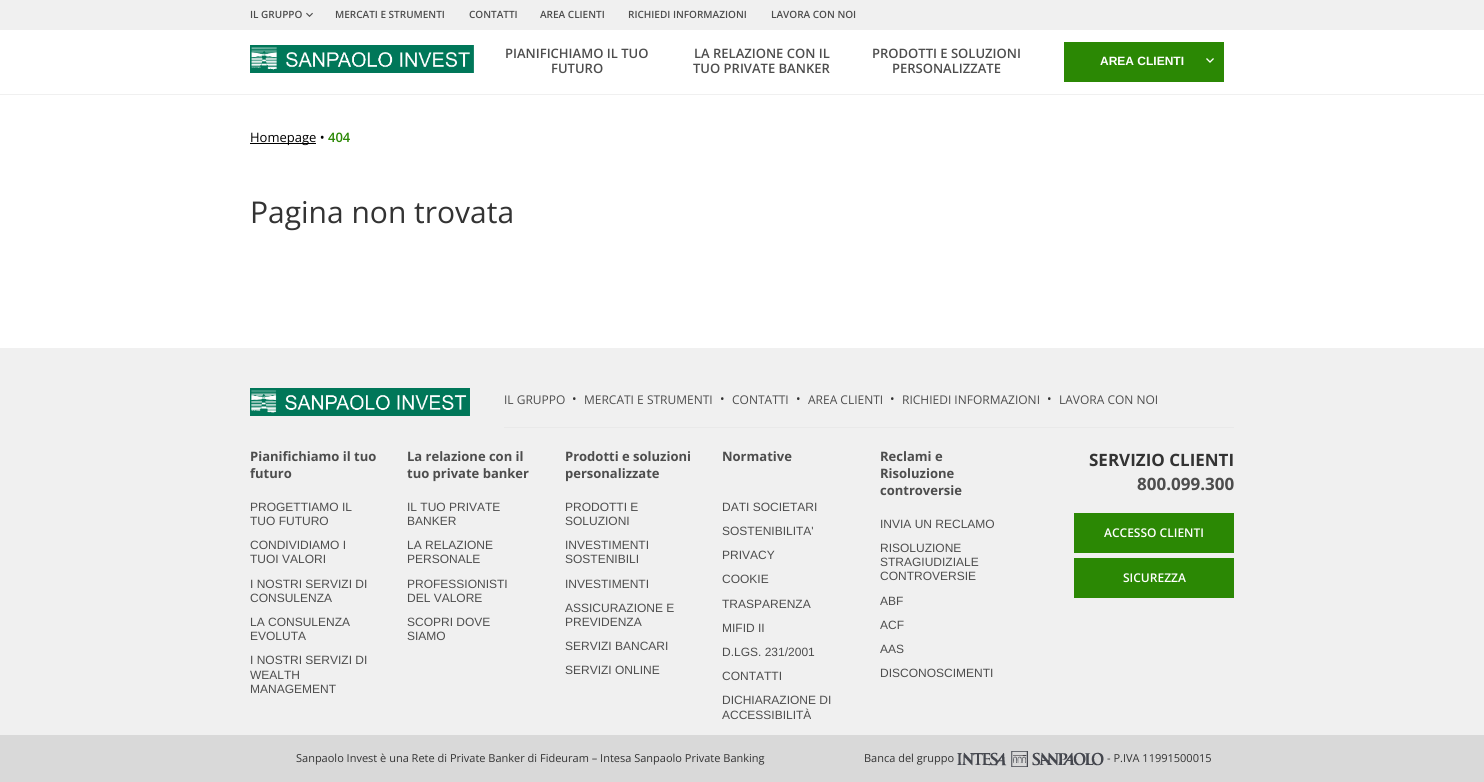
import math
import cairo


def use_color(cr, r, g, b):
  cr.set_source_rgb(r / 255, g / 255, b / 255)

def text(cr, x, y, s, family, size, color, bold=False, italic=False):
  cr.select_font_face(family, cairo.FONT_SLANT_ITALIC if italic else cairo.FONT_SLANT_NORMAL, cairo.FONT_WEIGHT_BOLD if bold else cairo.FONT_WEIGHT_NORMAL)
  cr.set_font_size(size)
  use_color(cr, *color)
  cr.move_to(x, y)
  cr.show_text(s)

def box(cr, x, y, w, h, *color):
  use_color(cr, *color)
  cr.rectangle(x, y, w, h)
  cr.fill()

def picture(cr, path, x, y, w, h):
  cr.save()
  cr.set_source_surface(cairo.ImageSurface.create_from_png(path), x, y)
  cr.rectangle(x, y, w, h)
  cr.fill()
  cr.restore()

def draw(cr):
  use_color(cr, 255, 255, 255)
  cr.paint()
  box(cr, 0, 94, 1484, 1, 240, 240, 240)
  box(cr, 0, 0, 1484, 30, 240, 240, 240)
  picture(cr, "img_01.png", 306, 12, 7, 5)
  picture(cr, "img_02.png", 250, 45, 224, 28)
  box(cr, 1064, 42, 160, 40, 43, 136, 4)
  picture(cr, "img_03.png", 1206, 58, 8, 5)
  box(cr, 250, 143, 66, 1, 0, 0, 0)
  box(cr, 0, 348, 1484, 387, 240, 240, 240)
  picture(cr, "img_04.png", 250, 388, 220, 28)
  box(cr, 504, 427, 730, 1, 233, 233, 233)
  box(cr, 1074, 513, 160, 40, 43, 136, 4)
  box(cr, 1074, 558, 160, 40, 43, 136, 4)
  box(cr, 0, 735, 1484, 47, 217, 217, 217)
  picture(cr, "img_05.png", 957, 751, 147, 16)
  text(cr, 250, 18, "IL GRUPPO", "Open Sans SemiBold", 10, (77, 77, 77))
  text(cr, 335, 18, "MERCATI E STRUMENTI", "Open Sans SemiBold", 10, (77, 77, 77))
  text(cr, 469, 18, "CONTATTI", "Open Sans SemiBold", 10, (77, 77, 77))
  text(cr, 540, 18, "AREA CLIENTI", "Open Sans SemiBold", 10, (77, 77, 77))
  text(cr, 628, 18, "RICHIEDI INFORMAZIONI", "Open Sans SemiBold", 10, (77, 77, 77))
  text(cr, 771, 18, "LAVORA CON NOI", "Open Sans SemiBold", 10, (77, 77, 77))
  text(cr, 505, 58, "PIANIFICHIAMO IL TUO", "Open Sans SemiBold", 13, (77, 77, 77))
  text(cr, 551, 73, "FUTURO", "Open Sans SemiBold", 13, (77, 77, 77))
  text(cr, 694, 58, "LA RELAZIONE CON IL", "Open Sans SemiBold", 13, (77, 77, 77))
  text(cr, 693, 73, "TUO PRIVATE BANKER", "Open Sans SemiBold", 13, (77, 77, 77))
  text(cr, 872, 58, "PRODOTTI E SOLUZIONI", "Open Sans SemiBold", 13, (77, 77, 77))
  text(cr, 892, 73, "PERSONALIZZATE", "Open Sans SemiBold", 13, (77, 77, 77))
  text(cr, 1100, 65, "AREA CLIENTI", "Liberation Sans", 12, (255, 255, 255), bold=True)
  text(cr, 250, 142, "Homepage •", "Open Sans", 13, (0, 0, 0))
  text(cr, 328, 142, "404", "Open Sans SemiBold", 13, (43, 136, 4))
  text(cr, 250, 223, "Pagina non trovata", "Open Sans", 30, (51, 51, 51))
  text(cr, 504, 404, "IL GRUPPO", "Open Sans", 12, (77, 77, 77))
  text(cr, 572, 403, "•", "Open Sans", 12, (51, 51, 51))
  text(cr, 584, 404, "MERCATI E STRUMENTI", "Open Sans", 12, (77, 77, 77))
  text(cr, 720, 403, "•", "Open Sans", 12, (51, 51, 51))
  text(cr, 732, 404, "CONTATTI", "Open Sans", 12, (77, 77, 77))
  text(cr, 796, 403, "•", "Open Sans", 12, (51, 51, 51))
  text(cr, 808, 404, "AREA CLIENTI", "Open Sans", 12, (77, 77, 77))
  text(cr, 890, 403, "•", "Open Sans", 12, (51, 51, 51))
  text(cr, 902, 404, "RICHIEDI INFORMAZIONI", "Open Sans", 12, (77, 77, 77))
  text(cr, 1047, 403, "•", "Open Sans", 12, (51, 51, 51))
  text(cr, 1059, 404, "LAVORA CON NOI", "Open Sans", 12, (77, 77, 77))
  text(cr, 250, 461, "Pianifichiamo il tuo", "Open Sans", 13, (77, 77, 77), bold=True)
  text(cr, 250, 478, "futuro", "Open Sans", 13, (77, 77, 77), bold=True)
  text(cr, 250, 511, "PROGETTIAMO IL", "Liberation Sans", 12, (77, 77, 77))
  text(cr, 250, 525, "TUO FUTURO", "Liberation Sans", 12, (77, 77, 77))
  text(cr, 250, 549, "CONDIVIDIAMO I", "Liberation Sans", 12, (77, 77, 77))
  text(cr, 250, 563, "TUOI VALORI", "Liberation Sans", 12, (77, 77, 77))
  text(cr, 250, 588, "I NOSTRI SERVIZI DI", "Liberation Sans", 12, (77, 77, 77))
  text(cr, 250, 602, "CONSULENZA", "Liberation Sans", 12, (77, 77, 77))
  text(cr, 250, 626, "LA CONSULENZA", "Liberation Sans", 12, (77, 77, 77))
  text(cr, 250, 640, "EVOLUTA", "Liberation Sans", 12, (77, 77, 77))
  text(cr, 250, 664, "I NOSTRI SERVIZI DI", "Liberation Sans", 12, (77, 77, 77))
  text(cr, 250, 679, "WEALTH", "Liberation Sans", 12, (77, 77, 77))
  text(cr, 250, 693, "MANAGEMENT", "Liberation Sans", 12, (77, 77, 77))
  text(cr, 407, 461, "La relazione con il", "Open Sans", 13, (77, 77, 77), bold=True)
  text(cr, 407, 478, "tuo private banker", "Open Sans", 13, (77, 77, 77), bold=True)
  text(cr, 407, 511, "IL TUO PRIVATE", "Liberation Sans", 12, (77, 77, 77))
  text(cr, 407, 525, "BANKER", "Liberation Sans", 12, (77, 77, 77))
  text(cr, 407, 549, "LA RELAZIONE", "Liberation Sans", 12, (77, 77, 77))
  text(cr, 407, 563, "PERSONALE", "Liberation Sans", 12, (77, 77, 77))
  text(cr, 407, 588, "PROFESSIONISTI", "Liberation Sans", 12, (77, 77, 77))
  text(cr, 407, 602, "DEL VALORE", "Liberation Sans", 12, (77, 77, 77))
  text(cr, 407, 626, "SCOPRI DOVE", "Liberation Sans", 12, (77, 77, 77))
  text(cr, 407, 640, "SIAMO", "Liberation Sans", 12, (77, 77, 77))
  text(cr, 565, 461, "Prodotti e soluzioni", "Open Sans", 13, (77, 77, 77), bold=True)
  text(cr, 565, 478, "personalizzate", "Open Sans", 13, (77, 77, 77), bold=True)
  text(cr, 565, 511, "PRODOTTI E", "Liberation Sans", 12, (77, 77, 77))
  text(cr, 565, 525, "SOLUZIONI", "Liberation Sans", 12, (77, 77, 77))
  text(cr, 565, 549, "INVESTIMENTI", "Liberation Sans", 12, (77, 77, 77))
  text(cr, 565, 563, "SOSTENIBILI", "Liberation Sans", 12, (77, 77, 77))
  text(cr, 565, 588, "INVESTIMENTI", "Liberation Sans", 12, (77, 77, 77))
  text(cr, 565, 612, "ASSICURAZIONE E", "Liberation Sans", 12, (77, 77, 77))
  text(cr, 565, 626, "PREVIDENZA", "Liberation Sans", 12, (77, 77, 77))
  text(cr, 565, 650, "SERVIZI BANCARI", "Liberation Sans", 12, (77, 77, 77))
  text(cr, 565, 674, "SERVIZI ONLINE", "Liberation Sans", 12, (77, 77, 77))
  text(cr, 722, 461, "Normative", "Open Sans", 13, (77, 77, 77), bold=True)
  text(cr, 722, 511, "DATI SOCIETARI", "Liberation Sans", 12, (77, 77, 77))
  text(cr, 722, 535, "SOSTENIBILITA'", "Liberation Sans", 12, (77, 77, 77))
  text(cr, 722, 559, "PRIVACY", "Liberation Sans", 12, (77, 77, 77))
  text(cr, 722, 583, "COOKIE", "Liberation Sans", 12, (77, 77, 77))
  text(cr, 722, 608, "TRASPARENZA", "Liberation Sans", 12, (77, 77, 77))
  text(cr, 722, 632, "MIFID II", "Liberation Sans", 12, (77, 77, 77))
  text(cr, 722, 656, "D.LGS. 231/2001", "Liberation Sans", 12, (77, 77, 77))
  text(cr, 722, 680, "CONTATTI", "Liberation Sans", 12, (77, 77, 77))
  text(cr, 722, 704, "DICHIARAZIONE DI", "Liberation Sans", 12, (77, 77, 77))
  text(cr, 722, 719, "ACCESSIBILITÀ", "Liberation Sans", 12, (77, 77, 77))
  text(cr, 880, 461, "Reclami e", "Open Sans", 13, (77, 77, 77), bold=True)
  text(cr, 880, 478, "Risoluzione", "Open Sans", 13, (77, 77, 77), bold=True)
  text(cr, 880, 495, "controversie", "Open Sans", 13, (77, 77, 77), bold=True)
  text(cr, 880, 528, "INVIA UN RECLAMO", "Liberation Sans", 12, (77, 77, 77))
  text(cr, 880, 552, "RISOLUZIONE", "Liberation Sans", 12, (77, 77, 77))
  text(cr, 880, 566, "STRAGIUDIZIALE", "Liberation Sans", 12, (77, 77, 77))
  text(cr, 880, 580, "CONTROVERSIE", "Liberation Sans", 12, (77, 77, 77))
  text(cr, 880, 605, "ABF", "Liberation Sans", 12, (77, 77, 77))
  text(cr, 880, 629, "ACF", "Liberation Sans", 12, (77, 77, 77))
  text(cr, 880, 653, "AAS", "Liberation Sans", 12, (77, 77, 77))
  text(cr, 880, 677, "DISCONOSCIMENTI", "Liberation Sans", 12, (77, 77, 77))
  text(cr, 1089, 466, "SERVIZIO CLIENTI", "Open Sans", 17, (51, 51, 51), bold=True)
  text(cr, 1137, 490, "800.099.300", "Open Sans", 17, (77, 77, 77), bold=True)
  text(cr, 1104, 537, "ACCESSO CLIENTI", "Open Sans SemiBold", 12, (255, 255, 255))
  text(cr, 1123, 582, "SICUREZZA", "Open Sans SemiBold", 12, (255, 255, 255))
  text(cr, 296, 762, "Sanpaolo Invest è una Rete di Private Banker di Fideuram – Intesa Sanpaolo Private Banking", "Open Sans", 11, (51, 51, 51))
  text(cr, 864, 762, "Banca del gruppo", "Open Sans", 11, (51, 51, 51))
  text(cr, 1107, 762, "- P.IVA 11991500015", "Open Sans", 11, (51, 51, 51))


surface = cairo.ImageSurface(cairo.FORMAT_RGB24, 1484, 782)
cr = cairo.Context(surface)
options = cairo.FontOptions()
options.set_hint_metrics(cairo.HINT_METRICS_OFF)
options.set_hint_style(cairo.HINT_STYLE_NONE)
cr.set_font_options(options)
cr.set_miter_limit(4)
draw(cr)
surface.write_to_png("out.png")
